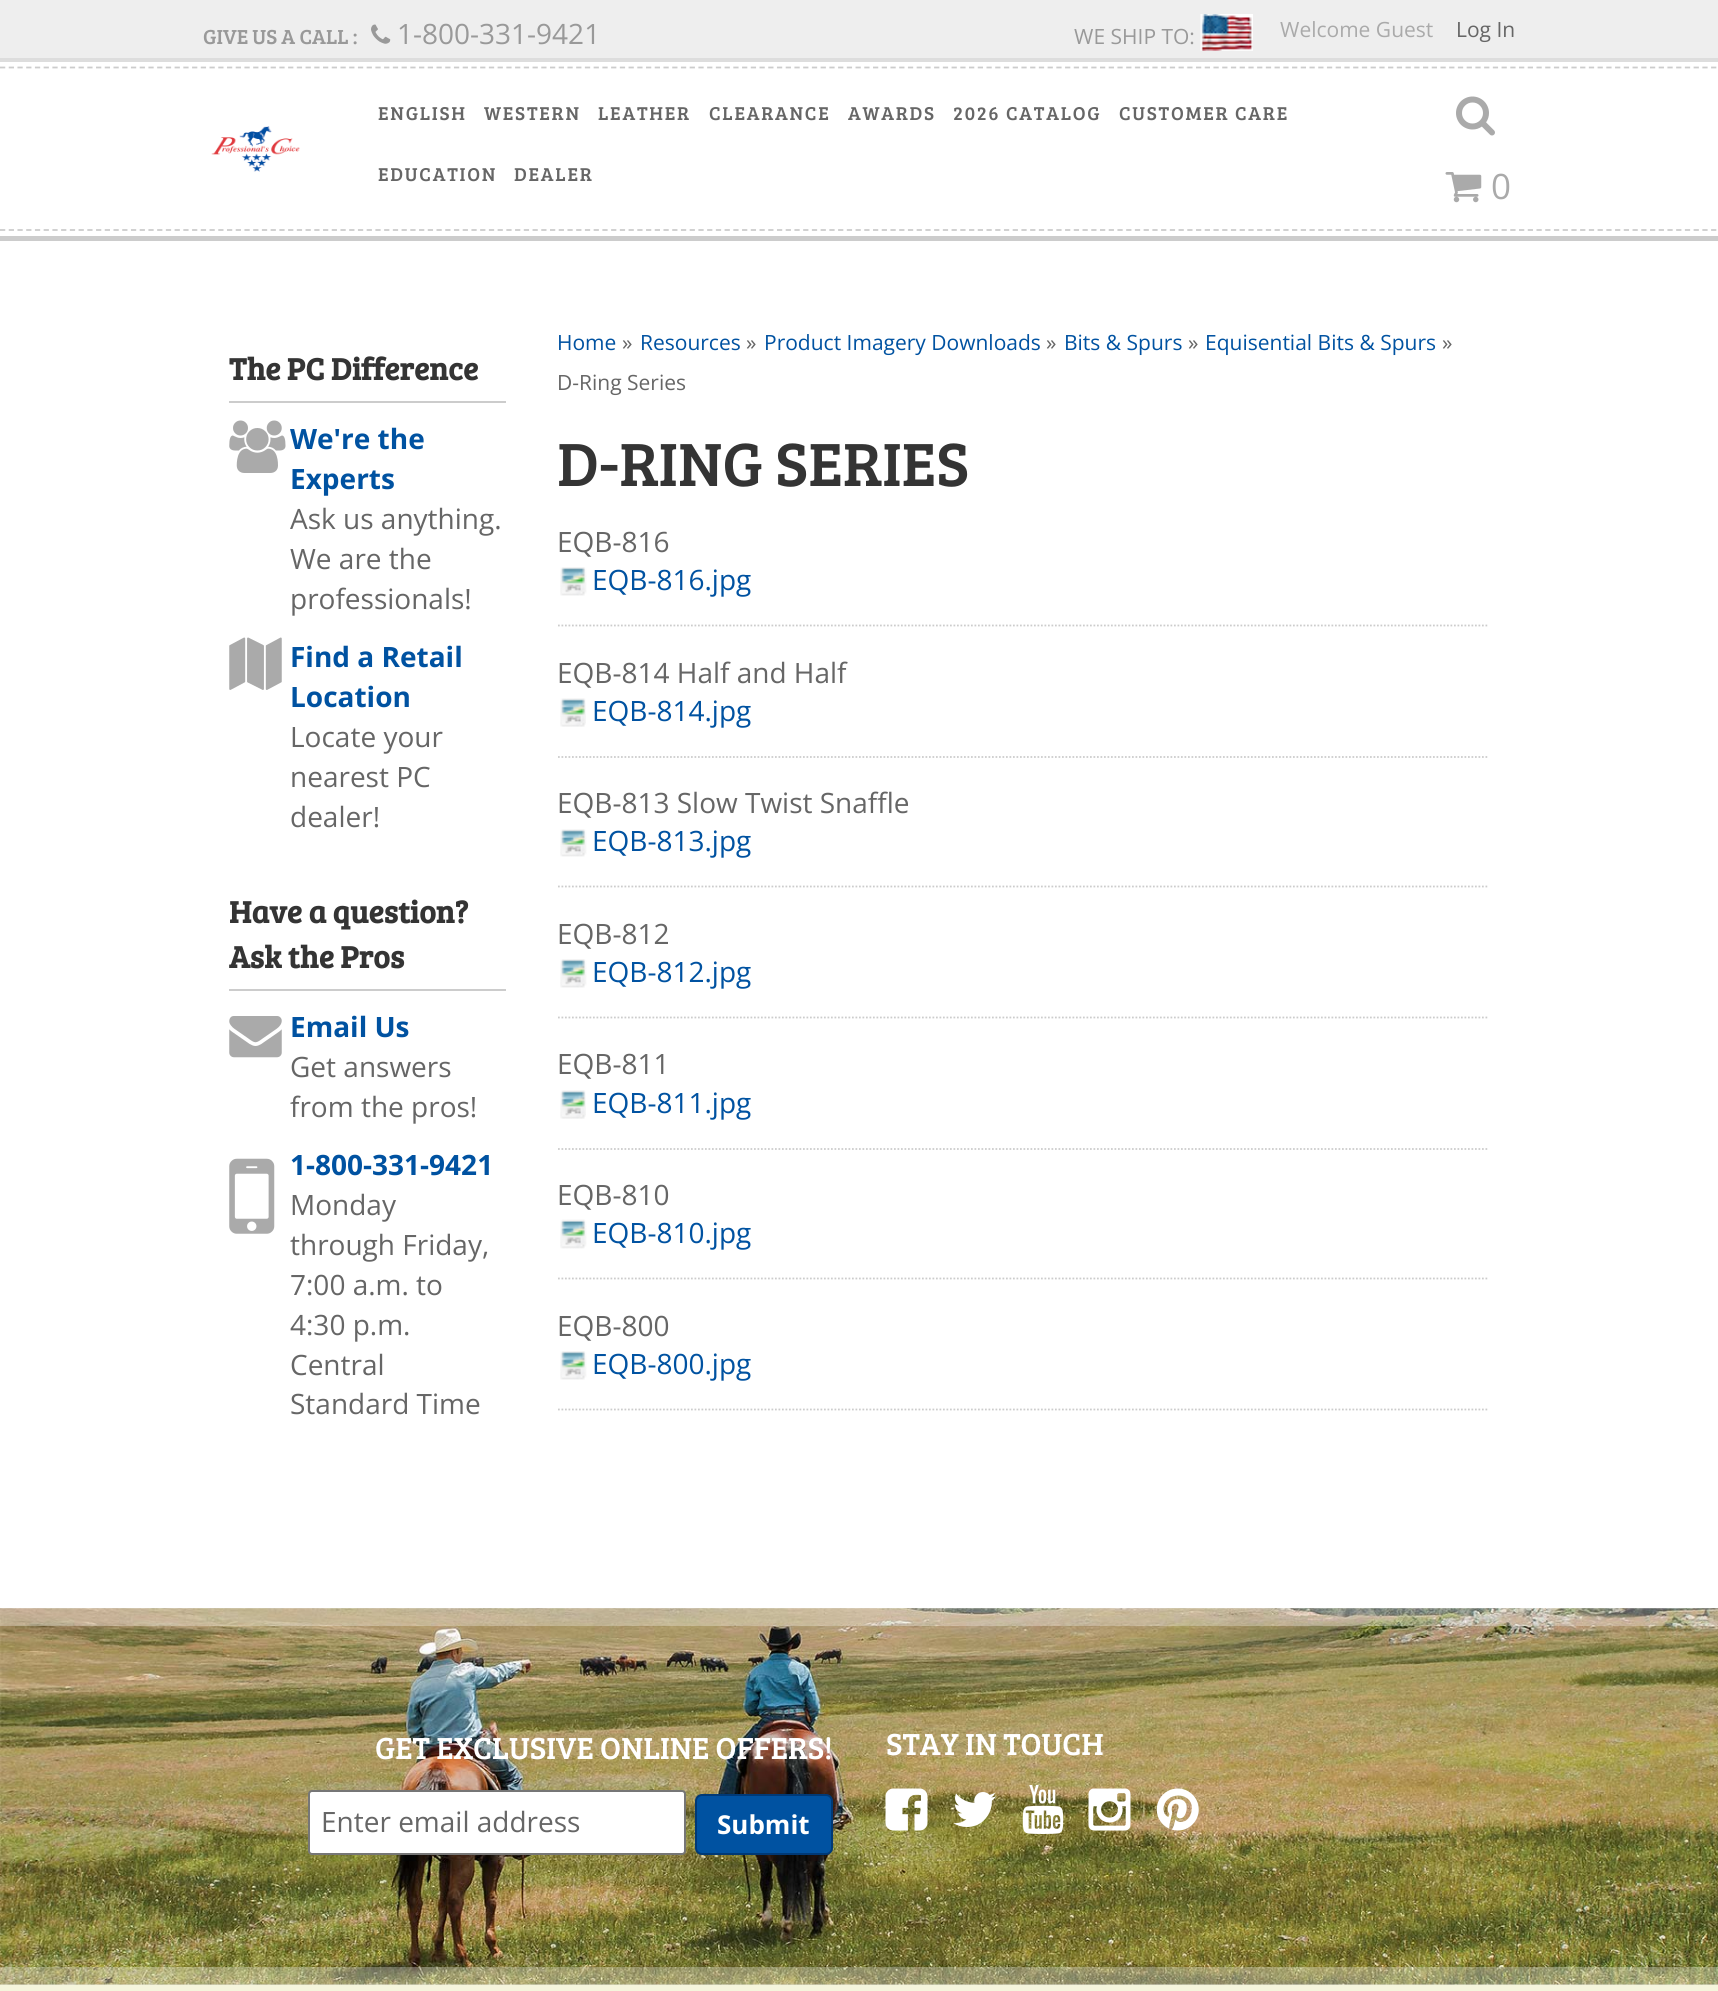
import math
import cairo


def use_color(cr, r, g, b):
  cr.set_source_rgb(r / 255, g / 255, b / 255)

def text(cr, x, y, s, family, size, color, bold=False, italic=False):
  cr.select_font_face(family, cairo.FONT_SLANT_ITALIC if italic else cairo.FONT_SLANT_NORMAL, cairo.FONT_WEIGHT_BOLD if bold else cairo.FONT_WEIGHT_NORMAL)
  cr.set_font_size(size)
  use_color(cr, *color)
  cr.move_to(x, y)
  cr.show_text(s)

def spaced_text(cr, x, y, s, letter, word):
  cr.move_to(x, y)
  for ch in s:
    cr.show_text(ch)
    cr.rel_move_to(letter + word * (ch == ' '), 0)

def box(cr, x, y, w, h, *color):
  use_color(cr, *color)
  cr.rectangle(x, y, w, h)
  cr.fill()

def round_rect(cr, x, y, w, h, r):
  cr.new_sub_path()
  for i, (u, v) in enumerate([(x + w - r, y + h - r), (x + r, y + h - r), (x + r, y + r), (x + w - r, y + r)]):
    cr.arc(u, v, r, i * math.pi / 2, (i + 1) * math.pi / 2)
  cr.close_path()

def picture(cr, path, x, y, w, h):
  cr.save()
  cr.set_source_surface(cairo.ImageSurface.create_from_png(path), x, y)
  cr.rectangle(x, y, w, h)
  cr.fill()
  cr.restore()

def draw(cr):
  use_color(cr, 255, 255, 255)
  cr.paint()
  box(cr, 0, 236, 1718, 5, 204, 204, 204)
  box(cr, 0, 0, 1718, 58, 238, 238, 238)
  box(cr, 0, 58, 1718, 4, 221, 221, 221)
  picture(cr, "img_01.png", 1200, 14, 53, 37)
  cr.new_path()
  cr.move_to(0, 67.5)
  cr.line_to(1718.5, 67.5)
  use_color(cr, 204, 204, 204)
  cr.set_line_width(1.8)
  cr.set_dash([5.25, 3.48])
  cr.stroke()
  picture(cr, "img_02.png", 371, 24, 20, 20)
  picture(cr, "img_03.png", 211, 126, 89, 46)
  picture(cr, "img_04.png", 1456, 96, 39, 40)
  picture(cr, "img_05.png", 1445, 172, 37, 31)
  cr.new_path()
  cr.move_to(0, 230)
  cr.line_to(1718.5, 230)
  cr.stroke()
  box(cr, 229, 401, 277, 2, 204, 204, 204)
  picture(cr, "img_06.png", 229, 420, 57, 53)
  picture(cr, "img_07.png", 229, 637, 53, 53)
  box(cr, 229, 989, 277, 2, 204, 204, 204)
  picture(cr, "img_08.png", 229, 1016, 53, 42)
  picture(cr, "img_09.png", 229, 1158, 46, 76)
  cr.new_path()
  cr.move_to(558, 625.5)
  cr.line_to(1489, 625.5)
  cr.set_dash([1.75, 1.75])
  cr.stroke()
  picture(cr, "img_10.png", 560, 567, 27, 29)
  cr.new_path()
  cr.move_to(558, 757)
  cr.line_to(1489, 757)
  cr.stroke()
  picture(cr, "img_11.png", 560, 698, 26, 29)
  cr.new_path()
  cr.move_to(558, 886.5)
  cr.line_to(1489, 886.5)
  cr.stroke()
  picture(cr, "img_12.png", 560, 829, 27, 28)
  cr.new_path()
  cr.move_to(558, 1017.5)
  cr.line_to(1489, 1017.5)
  cr.stroke()
  picture(cr, "img_10.png", 560, 959, 27, 29)
  cr.new_path()
  cr.move_to(558, 1149)
  cr.line_to(1489, 1149)
  cr.stroke()
  picture(cr, "img_11.png", 560, 1090, 26, 29)
  cr.new_path()
  cr.move_to(558, 1278.5)
  cr.line_to(1489, 1278.5)
  cr.stroke()
  picture(cr, "img_13.png", 560, 1219, 27, 30)
  cr.new_path()
  cr.move_to(558, 1409.5)
  cr.line_to(1489, 1409.5)
  cr.stroke()
  picture(cr, "img_10.png", 560, 1351, 27, 29)
  box(cr, 0, 1985, 1718, 6, 245, 245, 220)
  box(cr, 0, 1608, 1718, 377, 208, 208, 189)
  picture(cr, "img_14.png", 0, 1608, 1718, 377)
  cr.set_source_rgba(1, 1, 1, 0.3)
  cr.rectangle(0, 1608, 1718, 18)
  cr.fill()
  use_color(cr, 255, 255, 255)
  round_rect(cr, 309, 1791, 376, 63, 3)
  cr.fill_preserve()
  use_color(cr, 118, 118, 118)
  cr.set_line_width(2)
  cr.set_dash([])
  cr.stroke()
  use_color(cr, 0, 82, 161)
  round_rect(cr, 696, 1795, 136, 59, 6)
  cr.fill_preserve()
  use_color(cr, 0, 57, 118)
  cr.stroke()
  picture(cr, "img_15.png", 885, 1788, 43, 43)
  picture(cr, "img_16.png", 953, 1792, 44, 35)
  picture(cr, "img_17.png", 1022, 1785, 42, 49)
  picture(cr, "img_18.png", 1088, 1788, 43, 43)
  picture(cr, "img_19.png", 1156, 1788, 43, 43)
  cr.set_source_rgba(1, 1, 1, 0.3)
  cr.rectangle(0, 1967, 1718, 18)
  cr.fill()
  text(cr, 1074, 44, "WE SHIP TO:", "Open Sans", 21, (153, 153, 153))
  text(cr, 1280, 37, "Welcome Guest", "Open Sans", 21, (170, 170, 170))
  text(cr, 1456, 37, "Log In", "Open Sans", 21, (102, 102, 102))
  text(cr, 203, 44, "GIVE US A CALL :", "Bree Serif", 21, (153, 153, 153))
  text(cr, 397, 44, "1-800-331-9421", "Open Sans", 28, (153, 153, 153))
  cr.select_font_face("Bree Serif")
  cr.set_font_size(19.25)
  use_color(cr, 102, 102, 102)
  spaced_text(cr, 378, 120, "ENGLISH", 1.75, 0)
  spaced_text(cr, 484, 120, "WESTERN", 1.75, 0)
  spaced_text(cr, 598, 120, "LEATHER", 1.75, 0)
  spaced_text(cr, 709, 120, "CLEARANCE", 1.75, 0)
  spaced_text(cr, 848, 120, "AWARDS", 1.75, 0)
  spaced_text(cr, 953, 120, "2026 CATALOG", 1.75, 0)
  spaced_text(cr, 1119, 120, "CUSTOMER CARE", 1.75, 0)
  spaced_text(cr, 378, 181, "EDUCATION", 1.75, 0)
  spaced_text(cr, 514, 181, "DEALER", 1.75, 0)
  text(cr, 1491, 199, "0", "Open Sans", 35, (170, 170, 170))
  text(cr, 229, 380, "The PC Difference", "Bree Serif", 31.5, (52, 52, 52), bold=True)
  text(cr, 290, 449, "We're the", "Open Sans", 28, (0, 82, 161), bold=True)
  text(cr, 290, 489, "Experts", "Open Sans", 28, (0, 82, 161), bold=True)
  text(cr, 290, 529, "Ask us anything.", "Open Sans", 28, (102, 102, 102))
  text(cr, 290, 569, "We are the", "Open Sans", 28, (102, 102, 102))
  text(cr, 290, 609, "professionals!", "Open Sans", 28, (102, 102, 102))
  text(cr, 290, 667, "Find a Retail", "Open Sans", 28, (0, 82, 161), bold=True)
  text(cr, 290, 707, "Location", "Open Sans", 28, (0, 82, 161), bold=True)
  text(cr, 290, 747, "Locate your", "Open Sans", 28, (102, 102, 102))
  text(cr, 290, 787, "nearest PC", "Open Sans", 28, (102, 102, 102))
  text(cr, 290, 827, "dealer!", "Open Sans", 28, (102, 102, 102))
  text(cr, 229, 923, "Have a question?", "Bree Serif", 31.5, (52, 52, 52), bold=True)
  text(cr, 229, 968, "Ask the Pros", "Bree Serif", 31.5, (52, 52, 52), bold=True)
  text(cr, 290, 1037, "Email Us", "Open Sans", 28, (0, 82, 161), bold=True)
  text(cr, 290, 1077, "Get answers", "Open Sans", 28, (102, 102, 102))
  text(cr, 290, 1117, "from the pros!", "Open Sans", 28, (102, 102, 102))
  text(cr, 290, 1175, "1-800-331-9421", "Open Sans", 28, (0, 82, 161), bold=True)
  text(cr, 290, 1215, "Monday", "Open Sans", 28, (102, 102, 102))
  text(cr, 290, 1255, "through Friday,", "Open Sans", 28, (102, 102, 102))
  text(cr, 290, 1295, "7:00 a.m. to", "Open Sans", 28, (102, 102, 102))
  text(cr, 290, 1335, "4:30 p.m.", "Open Sans", 28, (102, 102, 102))
  text(cr, 290, 1375, "Central", "Open Sans", 28, (102, 102, 102))
  text(cr, 290, 1414, "Standard Time", "Open Sans", 28, (102, 102, 102))
  text(cr, 557, 350, "Home", "Open Sans", 21, (0, 82, 161))
  text(cr, 622, 350, "»", "Open Sans", 21, (102, 102, 102))
  text(cr, 640, 350, "Resources", "Open Sans", 21, (0, 82, 161))
  text(cr, 746, 350, "»", "Open Sans", 21, (102, 102, 102))
  text(cr, 764, 350, "Product Imagery Downloads", "Open Sans", 21, (0, 82, 161))
  text(cr, 1046, 350, "»", "Open Sans", 21, (102, 102, 102))
  text(cr, 1064, 350, "Bits & Spurs", "Open Sans", 21, (0, 82, 161))
  text(cr, 1188, 350, "»", "Open Sans", 21, (102, 102, 102))
  text(cr, 1205, 350, "Equisential Bits & Spurs", "Open Sans", 21, (0, 82, 161))
  text(cr, 1442, 350, "»", "Open Sans", 21, (102, 102, 102))
  text(cr, 557, 390, "D-Ring Series", "Open Sans", 21, (102, 102, 102))
  text(cr, 557, 486, "D-RING SERIES", "Bree Serif", 63, (52, 52, 52))
  text(cr, 557, 552, "EQB-816", "Open Sans", 28, (102, 102, 102))
  text(cr, 592, 590, "EQB-816.jpg", "Open Sans", 28, (0, 82, 161))
  text(cr, 557, 683, "EQB-814 Half and Half", "Open Sans", 28, (102, 102, 102))
  text(cr, 592, 721, "EQB-814.jpg", "Open Sans", 28, (0, 82, 161))
  text(cr, 557, 813, "EQB-813 Slow Twist Snaffle", "Open Sans", 28, (102, 102, 102))
  text(cr, 592, 851, "EQB-813.jpg", "Open Sans", 28, (0, 82, 161))
  text(cr, 557, 944, "EQB-812", "Open Sans", 28, (102, 102, 102))
  text(cr, 592, 982, "EQB-812.jpg", "Open Sans", 28, (0, 82, 161))
  text(cr, 557, 1074, "EQB-811", "Open Sans", 28, (102, 102, 102))
  text(cr, 592, 1113, "EQB-811.jpg", "Open Sans", 28, (0, 82, 161))
  text(cr, 557, 1205, "EQB-810", "Open Sans", 28, (102, 102, 102))
  text(cr, 592, 1243, "EQB-810.jpg", "Open Sans", 28, (0, 82, 161))
  text(cr, 557, 1336, "EQB-800", "Open Sans", 28, (102, 102, 102))
  text(cr, 592, 1374, "EQB-800.jpg", "Open Sans", 28, (0, 82, 161))
  text(cr, 375, 1759, "GET EXCLUSIVE ONLINE OFFERS!", "Bree Serif", 31.5, (255, 255, 255))
  text(cr, 321, 1832, "Enter email address", "Open Sans", 28, (102, 102, 102))
  text(cr, 717, 1834, "Submit", "Open Sans", 26, (255, 255, 255), bold=True)
  text(cr, 886, 1755, "STAY IN TOUCH", "Bree Serif", 31.5, (255, 255, 255))


surface = cairo.ImageSurface(cairo.FORMAT_RGB24, 1718, 1991)
cr = cairo.Context(surface)
options = cairo.FontOptions()
options.set_hint_metrics(cairo.HINT_METRICS_OFF)
options.set_hint_style(cairo.HINT_STYLE_NONE)
cr.set_font_options(options)
cr.set_miter_limit(4)
draw(cr)
surface.write_to_png("out.png")
